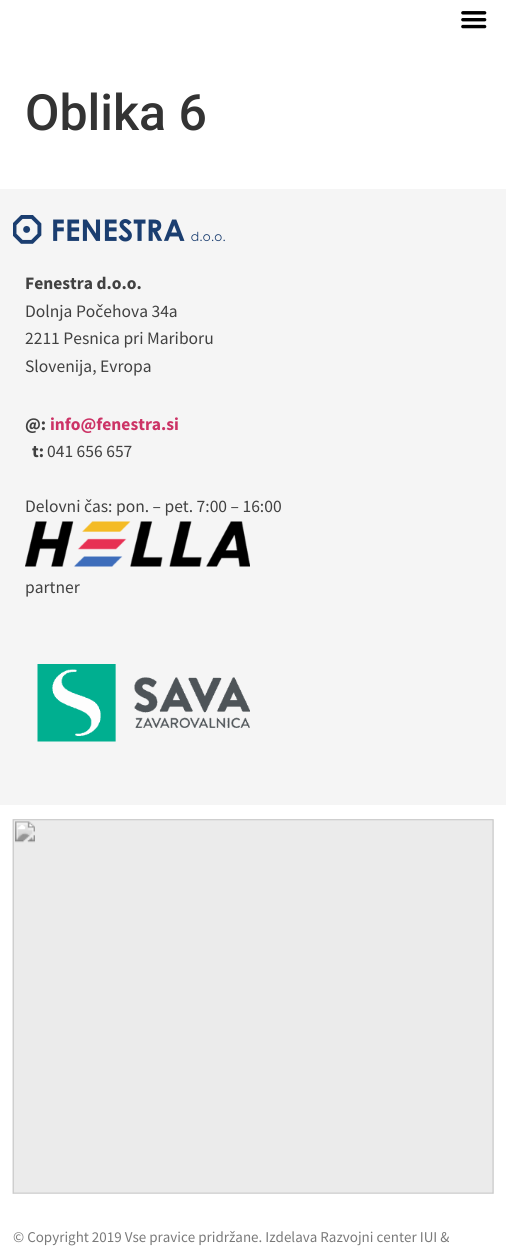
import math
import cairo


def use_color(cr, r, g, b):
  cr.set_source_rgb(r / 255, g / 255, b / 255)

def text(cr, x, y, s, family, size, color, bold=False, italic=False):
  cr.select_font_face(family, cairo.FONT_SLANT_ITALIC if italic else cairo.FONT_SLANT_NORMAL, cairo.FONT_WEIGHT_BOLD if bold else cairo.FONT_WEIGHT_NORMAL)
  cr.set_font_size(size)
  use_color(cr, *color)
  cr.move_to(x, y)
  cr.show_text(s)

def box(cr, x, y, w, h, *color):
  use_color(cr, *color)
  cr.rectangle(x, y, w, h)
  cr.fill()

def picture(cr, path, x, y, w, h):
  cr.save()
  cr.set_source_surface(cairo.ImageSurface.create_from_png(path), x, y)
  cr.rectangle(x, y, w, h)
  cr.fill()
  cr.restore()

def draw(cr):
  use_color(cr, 255, 255, 255)
  cr.paint()
  picture(cr, "img_01.png", 461, 11, 26, 18)
  box(cr, 0, 189, 506, 616, 245, 245, 245)
  picture(cr, "img_02.png", 13, 215, 212, 29)
  picture(cr, "img_03.png", 25, 521, 225, 46)
  picture(cr, "img_04.png", 37, 664, 213, 78)
  picture(cr, "img_05.png", 12, 819, 482, 375)
  text(cr, 25, 130, "Oblika 6", "Roboto Medium", 50, (51, 51, 51))
  text(cr, 25, 289, "Fenestra d.o.o.", "Source Sans Pro", 17.5, (65, 65, 65), bold=True)
  text(cr, 25, 317, "Dolnja Počehova 34a", "Source Sans Pro", 17.5, (65, 65, 65))
  text(cr, 25, 344, "2211 Pesnica pri Mariboru", "Source Sans Pro", 17.5, (65, 65, 65))
  text(cr, 25, 372, "Slovenija, Evropa", "Source Sans Pro", 17.5, (65, 65, 65))
  text(cr, 25, 430, "@:", "Source Sans Pro", 17.5, (65, 65, 65), bold=True)
  text(cr, 50, 430, "info@fenestra.si", "Source Sans Pro", 17.5, (204, 51, 102), bold=True)
  text(cr, 32, 457, "t:", "Source Sans Pro", 17.5, (65, 65, 65), bold=True)
  text(cr, 47, 457, "041 656 657", "Source Sans Pro", 17.5, (65, 65, 65))
  text(cr, 25, 512, "Delovni čas: pon. – pet. 7:00 – 16:00", "Source Sans Pro", 17.5, (65, 65, 65))
  text(cr, 25, 593, "partner", "Source Sans Pro", 17.5, (65, 65, 65))
  text(cr, 13, 1242, "© Copyright 2019 Vse pravice pridržane. Izdelava Razvojni center IUI &", "Source Sans Pro", 15, (122, 122, 122))


surface = cairo.ImageSurface(cairo.FORMAT_RGB24, 506, 1256)
cr = cairo.Context(surface)
options = cairo.FontOptions()
options.set_hint_metrics(cairo.HINT_METRICS_OFF)
options.set_hint_style(cairo.HINT_STYLE_NONE)
cr.set_font_options(options)
cr.set_miter_limit(4)
draw(cr)
surface.write_to_png("out.png")
